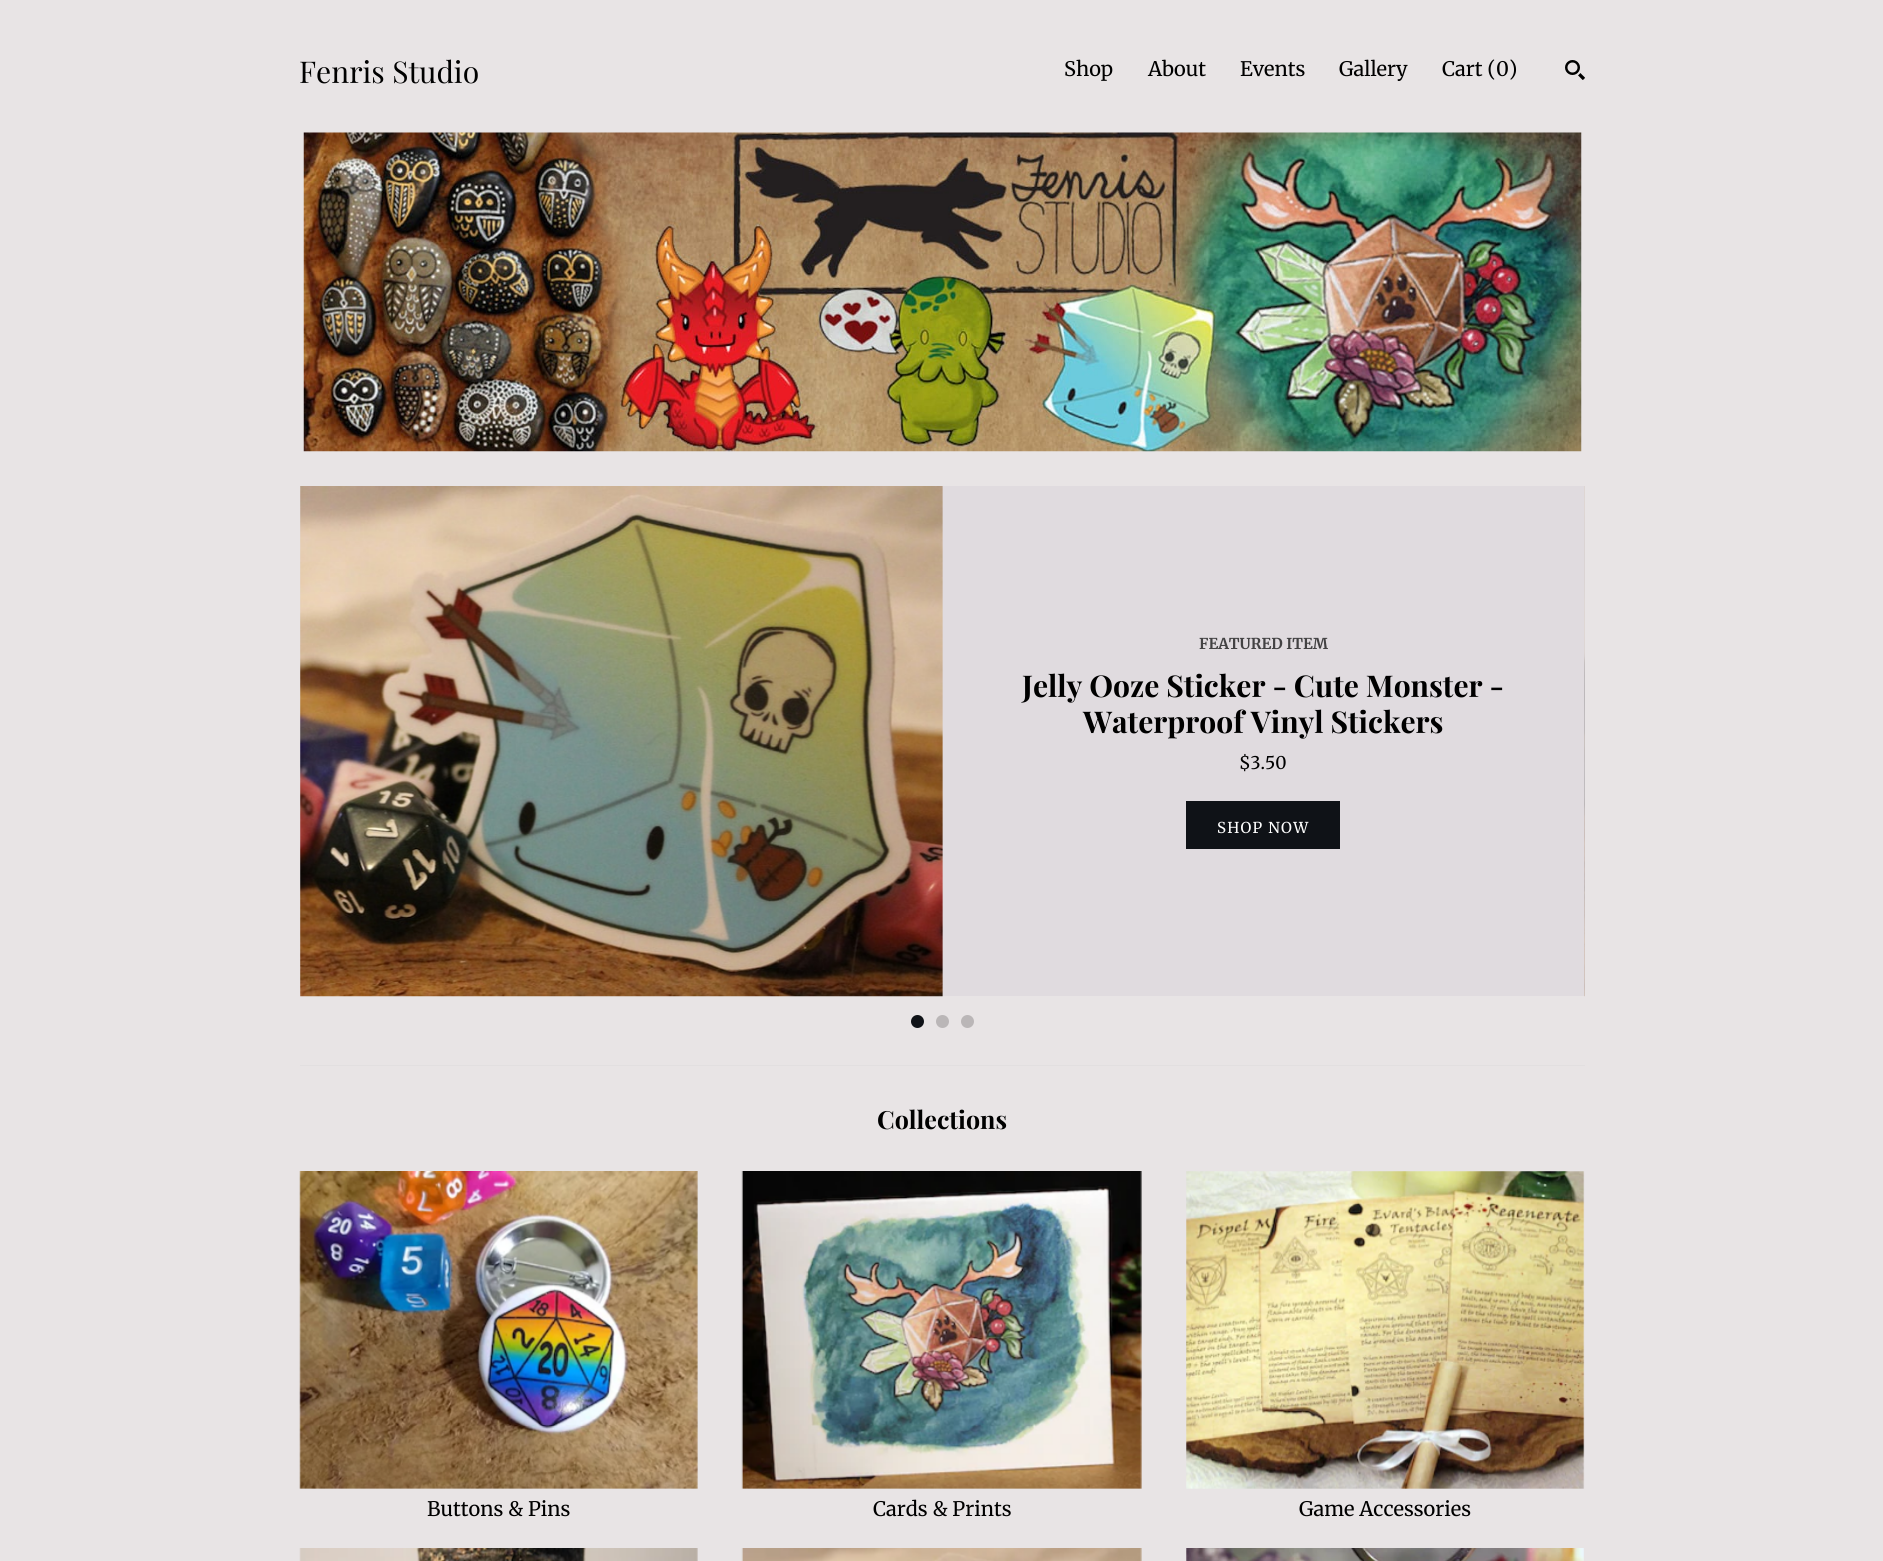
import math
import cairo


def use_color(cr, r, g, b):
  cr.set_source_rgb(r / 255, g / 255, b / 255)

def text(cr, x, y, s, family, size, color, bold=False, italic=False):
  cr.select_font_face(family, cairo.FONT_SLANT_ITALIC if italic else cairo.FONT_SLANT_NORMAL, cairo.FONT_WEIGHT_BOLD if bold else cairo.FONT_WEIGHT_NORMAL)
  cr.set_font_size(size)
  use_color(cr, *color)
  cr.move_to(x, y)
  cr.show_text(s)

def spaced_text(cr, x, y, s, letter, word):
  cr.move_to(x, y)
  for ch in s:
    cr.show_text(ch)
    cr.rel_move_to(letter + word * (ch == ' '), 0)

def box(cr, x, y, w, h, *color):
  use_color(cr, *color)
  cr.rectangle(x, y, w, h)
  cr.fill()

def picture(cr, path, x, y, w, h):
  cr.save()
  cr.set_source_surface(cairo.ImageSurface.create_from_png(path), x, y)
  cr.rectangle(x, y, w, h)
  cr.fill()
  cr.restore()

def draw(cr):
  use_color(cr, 232, 228, 229)
  cr.paint()
  picture(cr, "img_01.png", 1565, 60, 20, 20)
  picture(cr, "img_02.png", 303, 132, 1279, 320)
  box(cr, 300, 486, 1285, 510, 224, 219, 223)
  picture(cr, "img_03.png", 300, 486, 643, 511)
  box(cr, 1186, 801, 154, 48, 15, 18, 23)
  picture(cr, "img_04.png", 1584, 486, 1, 511)
  cr.arc(917.5, 1021.5, 6.5, 0, 2 * math.pi)
  cr.fill()
  use_color(cr, 186, 182, 183)
  cr.arc(942.5, 1021.5, 6.5, 0, 2 * math.pi)
  cr.fill()
  cr.arc(967.5, 1021.5, 6.5, 0, 2 * math.pi)
  cr.fill()
  box(cr, 300, 1065, 1285, 1, 226, 223, 224)
  picture(cr, "img_05.png", 299, 1171, 399, 318)
  picture(cr, "img_06.png", 741, 1171, 401, 318)
  picture(cr, "img_07.png", 1186, 1171, 399, 318)
  picture(cr, "img_08.png", 299, 1548, 399, 13)
  picture(cr, "img_09.png", 741, 1548, 401, 13)
  picture(cr, "img_10.png", 1186, 1548, 398, 13)
  text(cr, 299, 83, "Fenris Studio", "Playfair Display", 30, (0, 0, 0))
  text(cr, 1064, 76, "Shop", "Merriweather", 20, (0, 0, 0))
  text(cr, 1148, 76, "About", "Merriweather", 20, (0, 0, 0))
  text(cr, 1240, 76, "Events", "Merriweather", 20, (0, 0, 0))
  text(cr, 1339, 76, "Gallery", "Merriweather", 20, (0, 0, 0))
  text(cr, 1442, 76, "Cart (0)", "Merriweather", 20, (0, 0, 0))
  text(cr, 1199, 649, "FEATURED ITEM", "Merriweather", 15, (67, 66, 67), bold=True)
  text(cr, 1022, 697, "Jelly Ooze Sticker - Cute Monster -", "Playfair Display", 30, (0, 0, 0), bold=True)
  text(cr, 1083, 733, "Waterproof Vinyl Stickers", "Playfair Display", 30, (0, 0, 0), bold=True)
  text(cr, 1239, 769, "$3.50", "Merriweather", 17.5, (0, 0, 0))
  cr.set_font_size(15)
  use_color(cr, 255, 255, 255)
  spaced_text(cr, 1217, 833, "SHOP NOW", 1.25, 0)
  text(cr, 877, 1129, "Collections", "Playfair Display", 25, (0, 0, 0), bold=True)
  text(cr, 427, 1516, "Buttons & Pins", "Merriweather", 20, (0, 0, 0))
  text(cr, 873, 1516, "Cards & Prints", "Merriweather", 20, (0, 0, 0))
  text(cr, 1299, 1516, "Game Accessories", "Merriweather", 20, (0, 0, 0))


surface = cairo.ImageSurface(cairo.FORMAT_RGB24, 1883, 1561)
cr = cairo.Context(surface)
options = cairo.FontOptions()
options.set_hint_metrics(cairo.HINT_METRICS_OFF)
options.set_hint_style(cairo.HINT_STYLE_NONE)
cr.set_font_options(options)
cr.set_miter_limit(4)
draw(cr)
surface.write_to_png("out.png")
